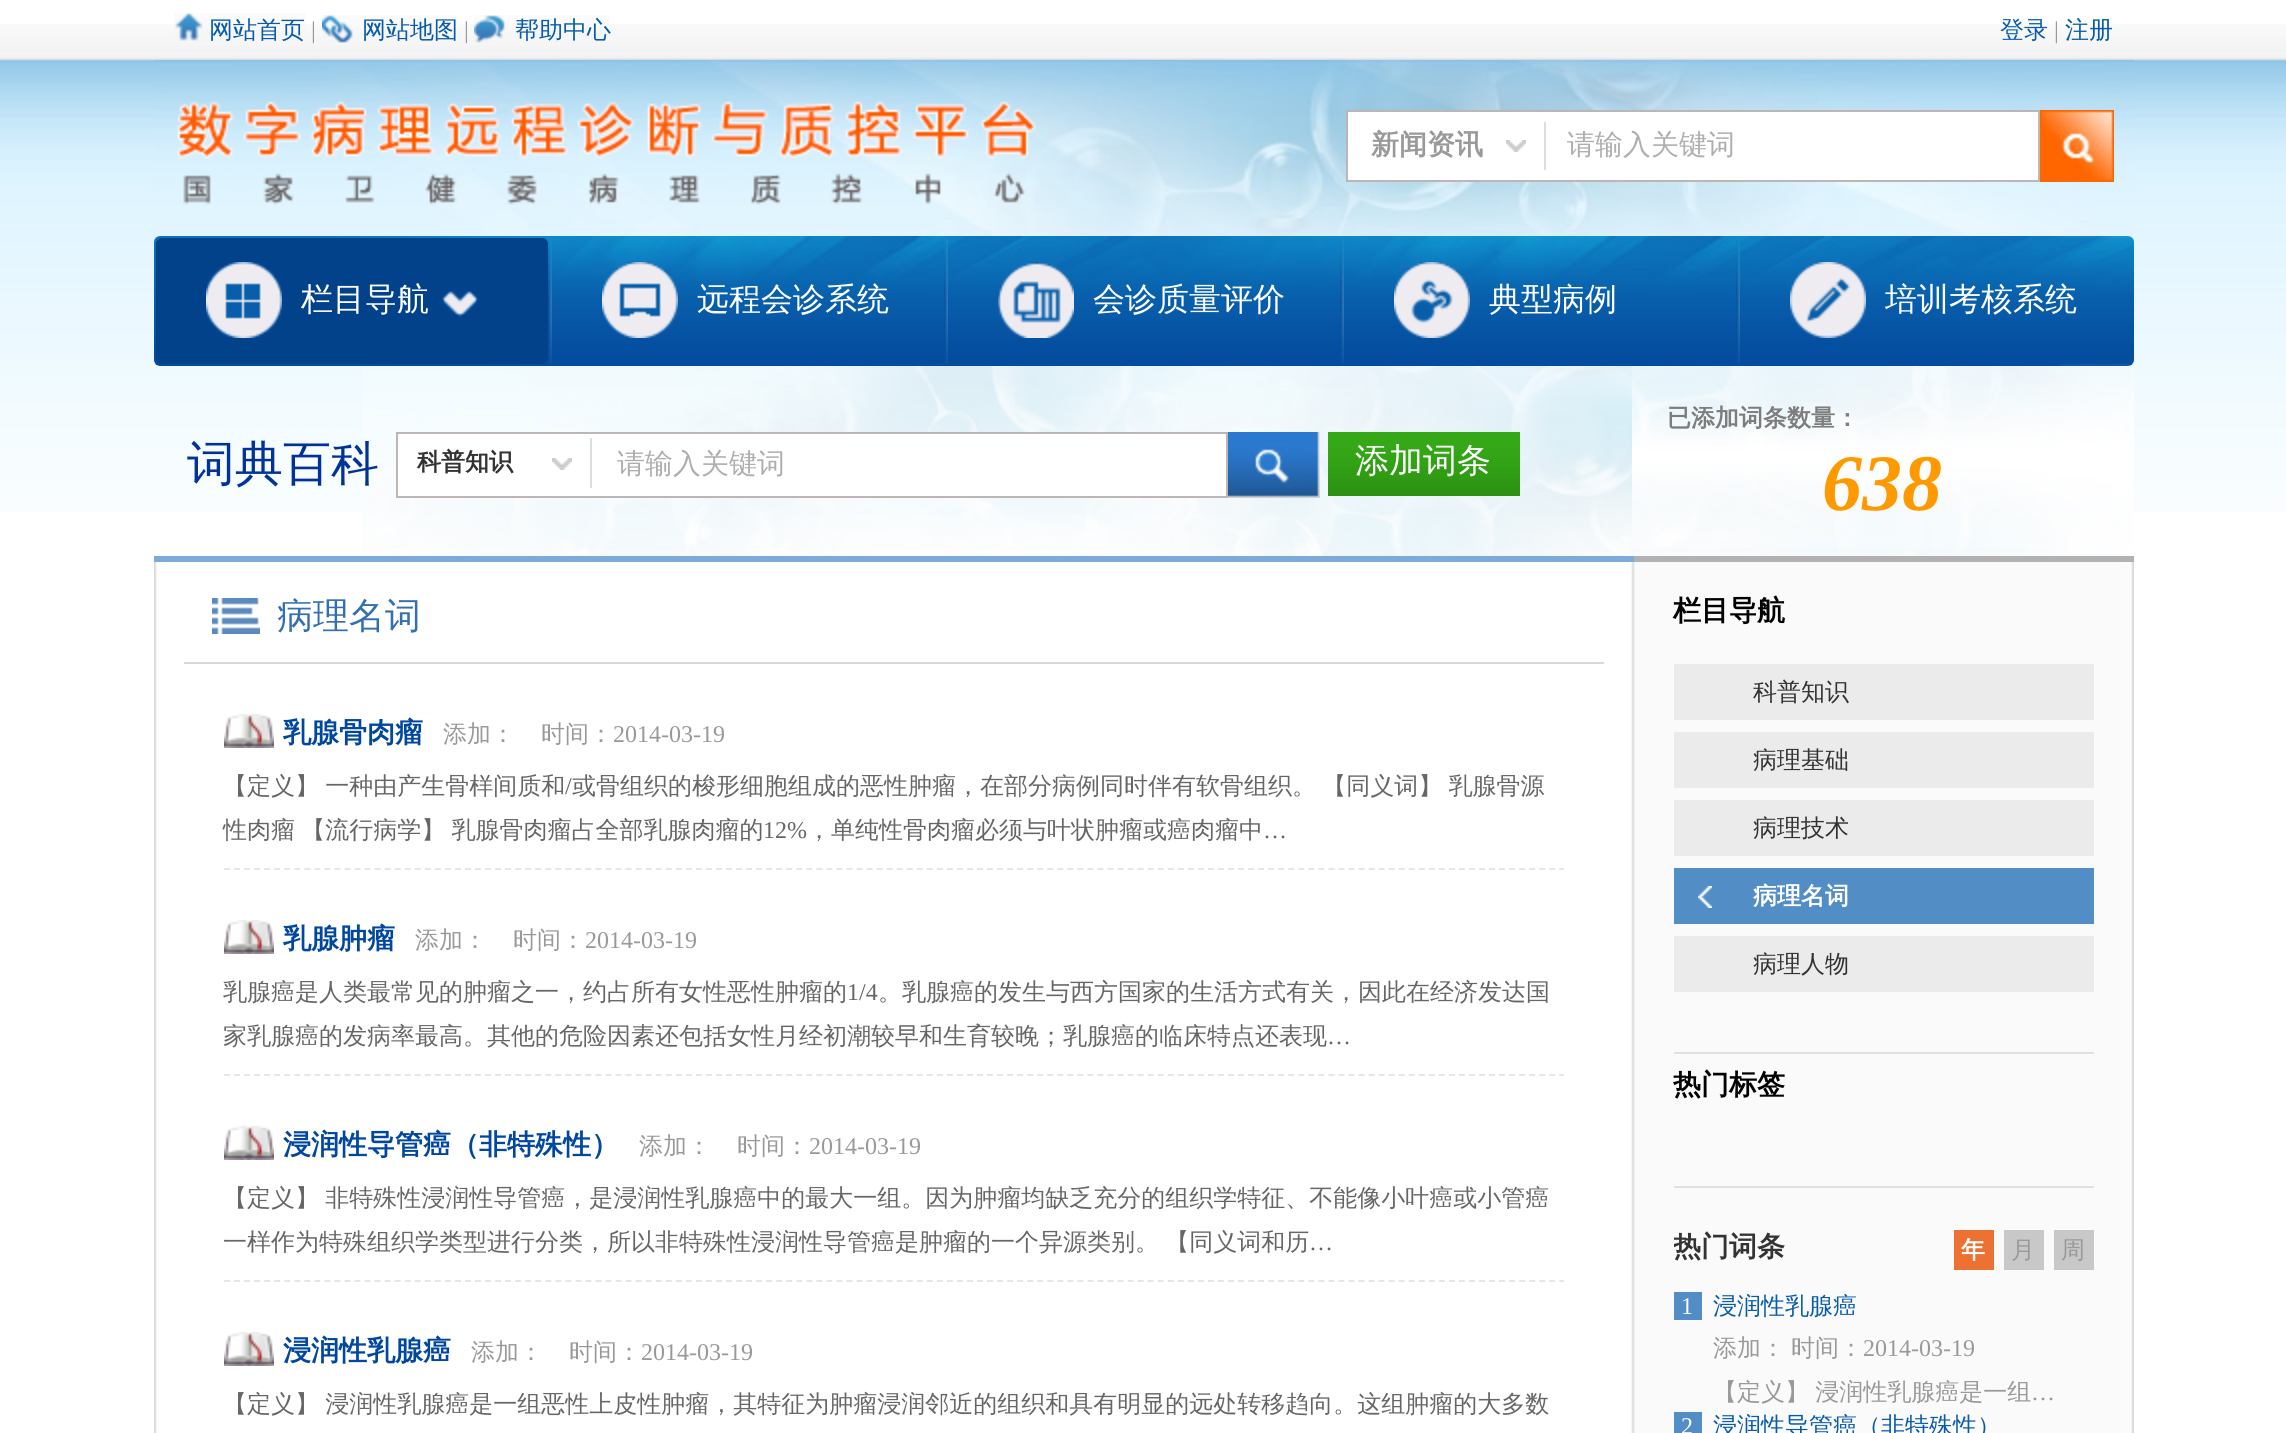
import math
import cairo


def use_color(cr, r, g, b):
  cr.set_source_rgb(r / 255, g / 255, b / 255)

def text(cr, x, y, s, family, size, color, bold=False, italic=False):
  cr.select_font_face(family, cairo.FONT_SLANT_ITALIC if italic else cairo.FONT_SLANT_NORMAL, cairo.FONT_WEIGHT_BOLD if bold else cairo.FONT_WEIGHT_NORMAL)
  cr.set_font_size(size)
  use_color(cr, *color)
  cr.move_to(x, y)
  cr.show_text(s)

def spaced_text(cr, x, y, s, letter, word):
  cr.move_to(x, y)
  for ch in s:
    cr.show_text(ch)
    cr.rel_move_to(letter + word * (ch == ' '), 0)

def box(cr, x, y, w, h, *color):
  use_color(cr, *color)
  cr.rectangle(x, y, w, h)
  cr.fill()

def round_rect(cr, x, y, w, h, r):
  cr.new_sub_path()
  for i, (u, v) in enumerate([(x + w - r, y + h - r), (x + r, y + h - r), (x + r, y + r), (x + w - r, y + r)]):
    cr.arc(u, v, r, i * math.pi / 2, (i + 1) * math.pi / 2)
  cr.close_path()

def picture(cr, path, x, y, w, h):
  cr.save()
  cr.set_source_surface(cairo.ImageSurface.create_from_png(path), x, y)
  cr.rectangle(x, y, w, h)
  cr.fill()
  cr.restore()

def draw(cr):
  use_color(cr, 255, 255, 255)
  cr.paint()
  picture(cr, "img_01.png", 0, 24, 2286, 488)
  picture(cr, "img_02.png", 154, 60, 1980, 182)
  picture(cr, "img_03.png", 174, 13, 132, 28)
  picture(cr, "img_04.png", 322, 15, 136, 28)
  picture(cr, "img_05.png", 474, 15, 136, 28)
  picture(cr, "img_06.png", 176, 101, 860, 104)
  use_color(cr, 255, 255, 255)
  cr.rectangle(1347, 111, 692, 70)
  cr.fill_preserve()
  use_color(cr, 188, 182, 180)
  cr.stroke()
  picture(cr, "img_07.png", 1506, 140, 20, 12)
  box(cr, 1544, 122, 2, 48, 221, 221, 221)
  picture(cr, "img_08.png", 2040, 110, 74, 72)
  picture(cr, "img_09.png", 154, 236, 1980, 130)
  use_color(cr, 2, 66, 139)
  round_rect(cr, 156, 238, 392, 126, 6)
  cr.fill()
  picture(cr, "img_10.png", 206, 262, 76, 76)
  picture(cr, "img_11.png", 442, 291, 37, 26)
  picture(cr, "img_12.png", 548, 239, 4, 125)
  picture(cr, "img_13.png", 602, 262, 76, 76)
  picture(cr, "img_14.png", 944, 238, 4, 126)
  picture(cr, "img_15.png", 998, 262, 76, 76)
  picture(cr, "img_12.png", 1340, 239, 4, 125)
  picture(cr, "img_16.png", 1394, 262, 76, 76)
  picture(cr, "img_17.png", 1736, 239, 4, 125)
  picture(cr, "img_18.png", 1790, 262, 76, 76)
  picture(cr, "img_19.png", 362, 366, 1760, 190)
  use_color(cr, 255, 255, 255)
  cr.rectangle(397, 433, 830, 64)
  cr.fill_preserve()
  use_color(cr, 188, 182, 180)
  cr.stroke()
  picture(cr, "img_07.png", 552, 458, 20, 12)
  box(cr, 590, 438, 2, 50, 221, 221, 221)
  picture(cr, "img_20.png", 1228, 432, 92, 66)
  picture(cr, "img_21.png", 1328, 432, 192, 64)
  picture(cr, "img_22.png", 1632, 366, 502, 182)
  picture(cr, "img_23.png", 154, 562, 1980, 871)
  box(cr, 154, 556, 1480, 6, 124, 170, 217)
  box(cr, 184, 662, 1420, 2, 217, 217, 217)
  picture(cr, "img_24.png", 212, 598, 48, 36)
  picture(cr, "img_25.png", 224, 714, 50, 34)
  cr.new_path()
  cr.move_to(224, 869)
  cr.line_to(1564, 869)
  use_color(cr, 230, 230, 230)
  cr.set_dash([6, 4.04])
  cr.stroke()
  picture(cr, "img_25.png", 224, 920, 50, 34)
  cr.new_path()
  cr.move_to(224, 1075)
  cr.line_to(1564, 1075)
  cr.stroke()
  picture(cr, "img_25.png", 224, 1126, 50, 34)
  cr.new_path()
  cr.move_to(224, 1281)
  cr.line_to(1564, 1281)
  cr.stroke()
  picture(cr, "img_25.png", 224, 1332, 50, 34)
  box(cr, 1634, 556, 500, 6, 177, 177, 177)
  box(cr, 1674, 664, 420, 56, 235, 235, 235)
  box(cr, 1674, 732, 420, 56, 235, 235, 235)
  box(cr, 1674, 800, 420, 56, 235, 235, 235)
  box(cr, 1674, 868, 420, 56, 83, 141, 197)
  picture(cr, "img_26.png", 1698, 886, 14, 22)
  box(cr, 1674, 936, 420, 56, 235, 235, 235)
  box(cr, 1674, 1052, 420, 2, 224, 224, 224)
  box(cr, 1674, 1186, 420, 2, 224, 224, 224)
  box(cr, 1954, 1230, 40, 40, 237, 113, 51)
  box(cr, 2004, 1230, 40, 40, 200, 200, 200)
  box(cr, 2054, 1230, 40, 40, 200, 200, 200)
  box(cr, 1674, 1292, 28, 28, 83, 141, 197)
  box(cr, 1674, 1412, 28, 21, 83, 141, 197)
  text(cr, 209, 38, "网站首页", "WenQuanYi Zen Hei Medium", 24, (7, 91, 172))
  text(cr, 311, 38, "|", "Liberation Serif", 24, (153, 153, 153))
  text(cr, 362, 38, "网站地图", "WenQuanYi Zen Hei Medium", 24, (7, 91, 172))
  text(cr, 464, 38, "|", "Liberation Serif", 24, (153, 153, 153))
  text(cr, 515, 38, "帮助中心", "WenQuanYi Zen Hei Medium", 24, (7, 91, 172))
  text(cr, 2000, 38, "登录", "WenQuanYi Zen Hei Medium", 24, (7, 91, 172))
  text(cr, 2054, 38, "|", "Liberation Serif", 24, (153, 153, 153))
  text(cr, 2065, 38, "注册", "WenQuanYi Zen Hei Medium", 24, (7, 91, 172))
  text(cr, 1371, 154, "新闻资讯", "WenQuanYi Zen Hei", 28, (153, 153, 153), bold=True)
  text(cr, 1567, 154, "请输入关键词", "WenQuanYi Zen Hei Medium", 28, (174, 174, 174))
  text(cr, 301, 310, "栏目导航", "WenQuanYi Zen Hei Medium", 32, (255, 255, 255))
  text(cr, 697, 310, "远程会诊系统", "WenQuanYi Zen Hei Medium", 32, (255, 255, 255))
  text(cr, 1093, 310, "会诊质量评价", "WenQuanYi Zen Hei Medium", 32, (255, 255, 255))
  text(cr, 1489, 310, "典型病例", "WenQuanYi Zen Hei Medium", 32, (255, 255, 255))
  text(cr, 1885, 310, "培训考核系统", "WenQuanYi Zen Hei Medium", 32, (255, 255, 255))
  text(cr, 187, 480, "词典百科", "WenQuanYi Zen Hei Medium", 48, (0, 51, 153))
  text(cr, 417, 470, "科普知识", "WenQuanYi Zen Hei", 24, (51, 51, 51), bold=True)
  text(cr, 617, 473, "请输入关键词", "WenQuanYi Zen Hei Medium", 28, (174, 174, 174))
  text(cr, 1355, 472, "添加词条", "WenQuanYi Zen Hei Medium", 34, (255, 255, 255))
  text(cr, 1667, 426, "已添加词条数量：", "WenQuanYi Zen Hei", 24, (125, 125, 125), bold=True)
  text(cr, 1822, 510, "638", "Liberation Serif", 80, (255, 153, 0), bold=True, italic=True)
  text(cr, 277, 628, "病理名词", "WenQuanYi Zen Hei Medium", 36, (51, 112, 177))
  text(cr, 283, 742, "乳腺骨肉瘤", "WenQuanYi Zen Hei", 28, (1, 71, 159), bold=True)
  text(cr, 443, 742, "添加：", "WenQuanYi Zen Hei Medium", 24, (153, 153, 153))
  text(cr, 541, 742, "时间：", "WenQuanYi Zen Hei Medium", 24, (153, 153, 153))
  text(cr, 613, 742, "2014-03-19", "Liberation Serif", 24, (153, 153, 153))
  cr.select_font_face("WenQuanYi Zen Hei Medium")
  use_color(cr, 102, 102, 102)
  spaced_text(cr, 223, 794, "【定义】 一种由产生骨样间质和", 0, -1)
  text(cr, 565, 794, "/", "Liberation Serif", 24, (102, 102, 102))
  cr.select_font_face("WenQuanYi Zen Hei Medium")
  spaced_text(cr, 572, 794, "或骨组织的梭形细胞组成的恶性肿瘤，在部分病例同时伴有软骨组织。 【同义词】 乳腺骨源", 0, -1)
  spaced_text(cr, 223, 838, "性肉瘤 【流行病学】 乳腺骨肉瘤占全部乳腺肉瘤的", 0, -1)
  text(cr, 763, 838, "12%", "Liberation Serif", 24, (102, 102, 102))
  text(cr, 807, 838, "，单纯性骨肉瘤必须与叶状肿瘤或癌肉瘤中", "WenQuanYi Zen Hei Medium", 24, (102, 102, 102))
  text(cr, 1263, 838, "…", "Liberation Serif", 24, (102, 102, 102))
  text(cr, 283, 948, "乳腺肿瘤", "WenQuanYi Zen Hei", 28, (1, 71, 159), bold=True)
  text(cr, 415, 948, "添加：", "WenQuanYi Zen Hei Medium", 24, (153, 153, 153))
  text(cr, 513, 948, "时间：", "WenQuanYi Zen Hei Medium", 24, (153, 153, 153))
  text(cr, 585, 948, "2014-03-19", "Liberation Serif", 24, (153, 153, 153))
  text(cr, 223, 1000, "乳腺癌是人类最常见的肿瘤之一，约占所有女性恶性肿瘤的", "WenQuanYi Zen Hei Medium", 24, (102, 102, 102))
  text(cr, 847, 1000, "1/4", "Liberation Serif", 24, (102, 102, 102))
  text(cr, 878, 1000, "。乳腺癌的发生与西方国家的生活方式有关，因此在经济发达国", "WenQuanYi Zen Hei Medium", 24, (102, 102, 102))
  text(cr, 223, 1044, "家乳腺癌的发病率最高。其他的危险因素还包括女性月经初潮较早和生育较晚；乳腺癌的临床特点还表现", "WenQuanYi Zen Hei Medium", 24, (102, 102, 102))
  text(cr, 1327, 1044, "…", "Liberation Serif", 24, (102, 102, 102))
  text(cr, 283, 1154, "浸润性导管癌（非特殊性）", "WenQuanYi Zen Hei", 28, (1, 71, 159), bold=True)
  text(cr, 639, 1154, "添加：", "WenQuanYi Zen Hei Medium", 24, (153, 153, 153))
  text(cr, 737, 1154, "时间：", "WenQuanYi Zen Hei Medium", 24, (153, 153, 153))
  text(cr, 809, 1154, "2014-03-19", "Liberation Serif", 24, (153, 153, 153))
  cr.select_font_face("WenQuanYi Zen Hei Medium")
  use_color(cr, 102, 102, 102)
  spaced_text(cr, 223, 1206, "【定义】 非特殊性浸润性导管癌，是浸润性乳腺癌中的最大一组。因为肿瘤均缺乏充分的组织学特征、不能像小叶癌或小管癌", 0, -1)
  spaced_text(cr, 223, 1250, "一样作为特殊组织学类型进行分类，所以非特殊性浸润性导管癌是肿瘤的一个异源类别。 【同义词和历", 0, -1)
  text(cr, 1309, 1250, "…", "Liberation Serif", 24, (102, 102, 102))
  text(cr, 283, 1360, "浸润性乳腺癌", "WenQuanYi Zen Hei", 28, (1, 71, 159), bold=True)
  text(cr, 471, 1360, "添加：", "WenQuanYi Zen Hei Medium", 24, (153, 153, 153))
  text(cr, 569, 1360, "时间：", "WenQuanYi Zen Hei Medium", 24, (153, 153, 153))
  text(cr, 641, 1360, "2014-03-19", "Liberation Serif", 24, (153, 153, 153))
  cr.select_font_face("WenQuanYi Zen Hei Medium")
  use_color(cr, 102, 102, 102)
  spaced_text(cr, 223, 1412, "【定义】 浸润性乳腺癌是一组恶性上皮性肿瘤，其特征为肿瘤浸润邻近的组织和具有明显的远处转移趋向。这组肿瘤的大多数", 0, -1)
  text(cr, 1673, 620, "栏目导航", "WenQuanYi Zen Hei", 28, (0, 0, 0), bold=True)
  text(cr, 1753, 700, "科普知识", "WenQuanYi Zen Hei Medium", 24, (51, 51, 51))
  text(cr, 1753, 768, "病理基础", "WenQuanYi Zen Hei Medium", 24, (51, 51, 51))
  text(cr, 1753, 836, "病理技术", "WenQuanYi Zen Hei Medium", 24, (51, 51, 51))
  text(cr, 1753, 904, "病理名词", "WenQuanYi Zen Hei", 24, (255, 255, 255), bold=True)
  text(cr, 1753, 972, "病理人物", "WenQuanYi Zen Hei Medium", 24, (51, 51, 51))
  text(cr, 1673, 1094, "热门标签", "WenQuanYi Zen Hei", 28, (0, 0, 0), bold=True)
  cr.save()
  cr.rectangle(1674, 1230, 420, 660)
  cr.clip()
  text(cr, 1673, 1256, "热门词条", "WenQuanYi Zen Hei", 28, (51, 51, 51), bold=True)
  cr.restore()
  text(cr, 1961, 1258, "年", "WenQuanYi Zen Hei", 24, (255, 255, 255), bold=True)
  text(cr, 2011, 1258, "月", "WenQuanYi Zen Hei Medium", 24, (153, 153, 153))
  text(cr, 2061, 1258, "周", "WenQuanYi Zen Hei Medium", 24, (153, 153, 153))
  text(cr, 1681, 1314, "1", "Liberation Serif", 24, (255, 255, 255))
  text(cr, 1713, 1314, "浸润性乳腺癌", "WenQuanYi Zen Hei Medium", 24, (7, 91, 172))
  text(cr, 1713, 1356, "添加：", "WenQuanYi Zen Hei Medium", 24, (153, 153, 153))
  text(cr, 1791, 1356, "时间：", "WenQuanYi Zen Hei Medium", 24, (153, 153, 153))
  text(cr, 1863, 1356, "2014-03-19", "Liberation Serif", 24, (153, 153, 153))
  cr.select_font_face("WenQuanYi Zen Hei Medium")
  spaced_text(cr, 1713, 1400, "【定义】 浸润性乳腺癌是一组", 0, -1)
  text(cr, 2031, 1400, "…", "Liberation Serif", 24, (153, 153, 153))
  text(cr, 1681, 1434, "2", "Liberation Serif", 24, (255, 255, 255))
  text(cr, 1713, 1434, "浸润性导管癌（非特殊性）", "WenQuanYi Zen Hei Medium", 24, (7, 91, 172))


surface = cairo.ImageSurface(cairo.FORMAT_RGB24, 2286, 1433)
cr = cairo.Context(surface)
options = cairo.FontOptions()
options.set_hint_metrics(cairo.HINT_METRICS_OFF)
options.set_hint_style(cairo.HINT_STYLE_NONE)
cr.set_font_options(options)
cr.set_miter_limit(4)
draw(cr)
surface.write_to_png("out.png")
